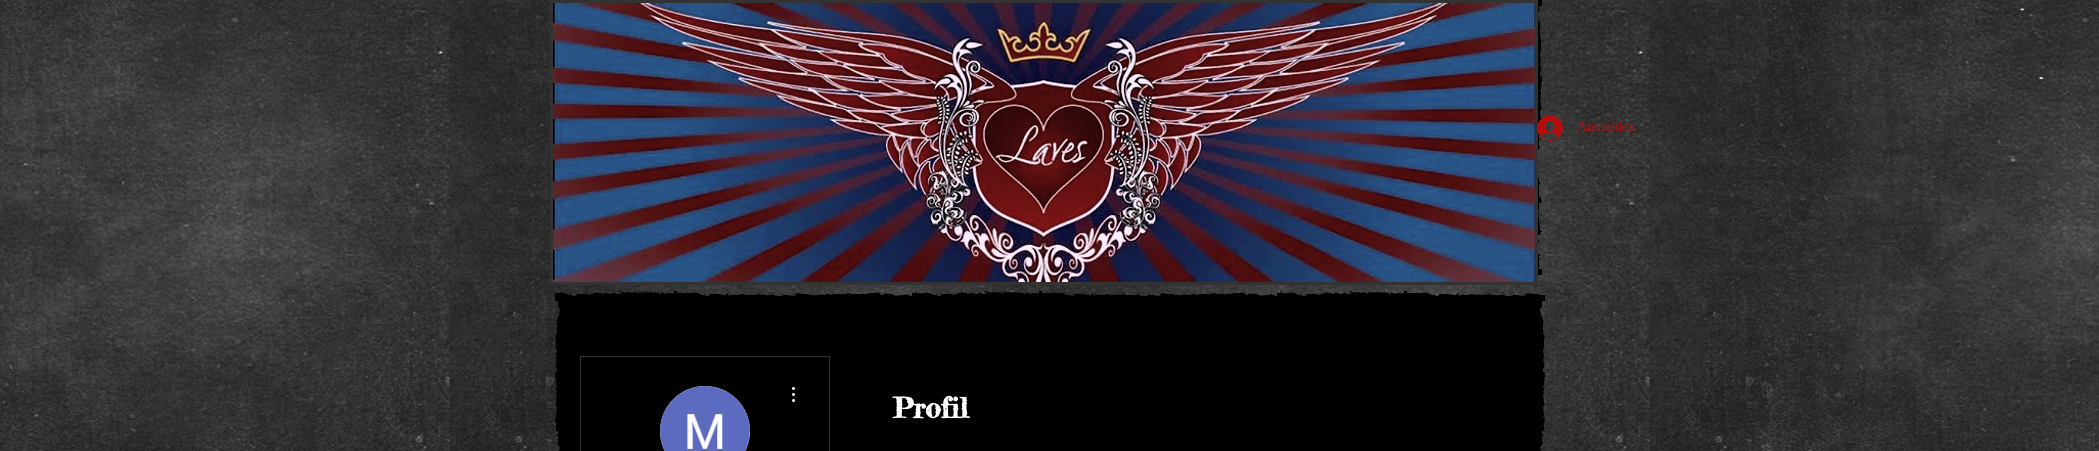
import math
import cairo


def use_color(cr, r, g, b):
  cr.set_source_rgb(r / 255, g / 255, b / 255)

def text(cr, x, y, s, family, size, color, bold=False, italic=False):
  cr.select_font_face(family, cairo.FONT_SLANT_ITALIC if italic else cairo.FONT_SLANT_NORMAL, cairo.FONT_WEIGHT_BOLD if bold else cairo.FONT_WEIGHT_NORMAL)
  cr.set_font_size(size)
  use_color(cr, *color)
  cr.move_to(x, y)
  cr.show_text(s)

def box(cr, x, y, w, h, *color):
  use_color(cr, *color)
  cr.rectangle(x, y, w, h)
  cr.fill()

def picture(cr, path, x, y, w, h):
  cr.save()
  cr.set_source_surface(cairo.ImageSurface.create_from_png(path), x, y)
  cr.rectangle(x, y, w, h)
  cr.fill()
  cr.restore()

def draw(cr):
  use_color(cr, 255, 255, 255)
  cr.paint()
  picture(cr, "img_01.png", 0, 0, 2099, 451)
  box(cr, 550, 0, 988, 285, 51, 51, 51)
  picture(cr, "img_02.png", 553, 3, 982, 279)
  box(cr, 1538, 0, 4, 6, 0, 0, 0)
  picture(cr, "img_03.png", 1538, 269, 4, 7)
  picture(cr, "img_04.png", 1538, 6, 4, 263)
  picture(cr, "img_05.png", 1537, 115, 26, 26)
  box(cr, 563, 301, 974, 150, 0, 0, 0)
  cr.rectangle(580.5, 356.5, 249, 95)
  use_color(cr, 51, 51, 51)
  cr.set_line_width(1)
  cr.stroke()
  use_color(cr, 216, 216, 216)
  cr.arc(705, 431, 45, 0, 2 * math.pi)
  cr.fill()
  picture(cr, "img_06.png", 660, 386, 90, 65)
  picture(cr, "img_07.png", 792, 387, 3, 15)
  picture(cr, "img_08.png", 555, 291, 990, 10)
  picture(cr, "img_09.png", 555, 301, 8, 150)
  picture(cr, "img_10.png", 1537, 301, 8, 150)
  text(cr, 1577, 131, "Anmelden", "Liberation Serif", 14, (178, 15, 12))
  text(cr, 893, 418, "Profil", "Fredericka the Great", 28, (255, 255, 255), bold=True)


surface = cairo.ImageSurface(cairo.FORMAT_RGB24, 2099, 451)
cr = cairo.Context(surface)
options = cairo.FontOptions()
options.set_hint_metrics(cairo.HINT_METRICS_OFF)
options.set_hint_style(cairo.HINT_STYLE_NONE)
cr.set_font_options(options)
cr.set_miter_limit(4)
draw(cr)
surface.write_to_png("out.png")
